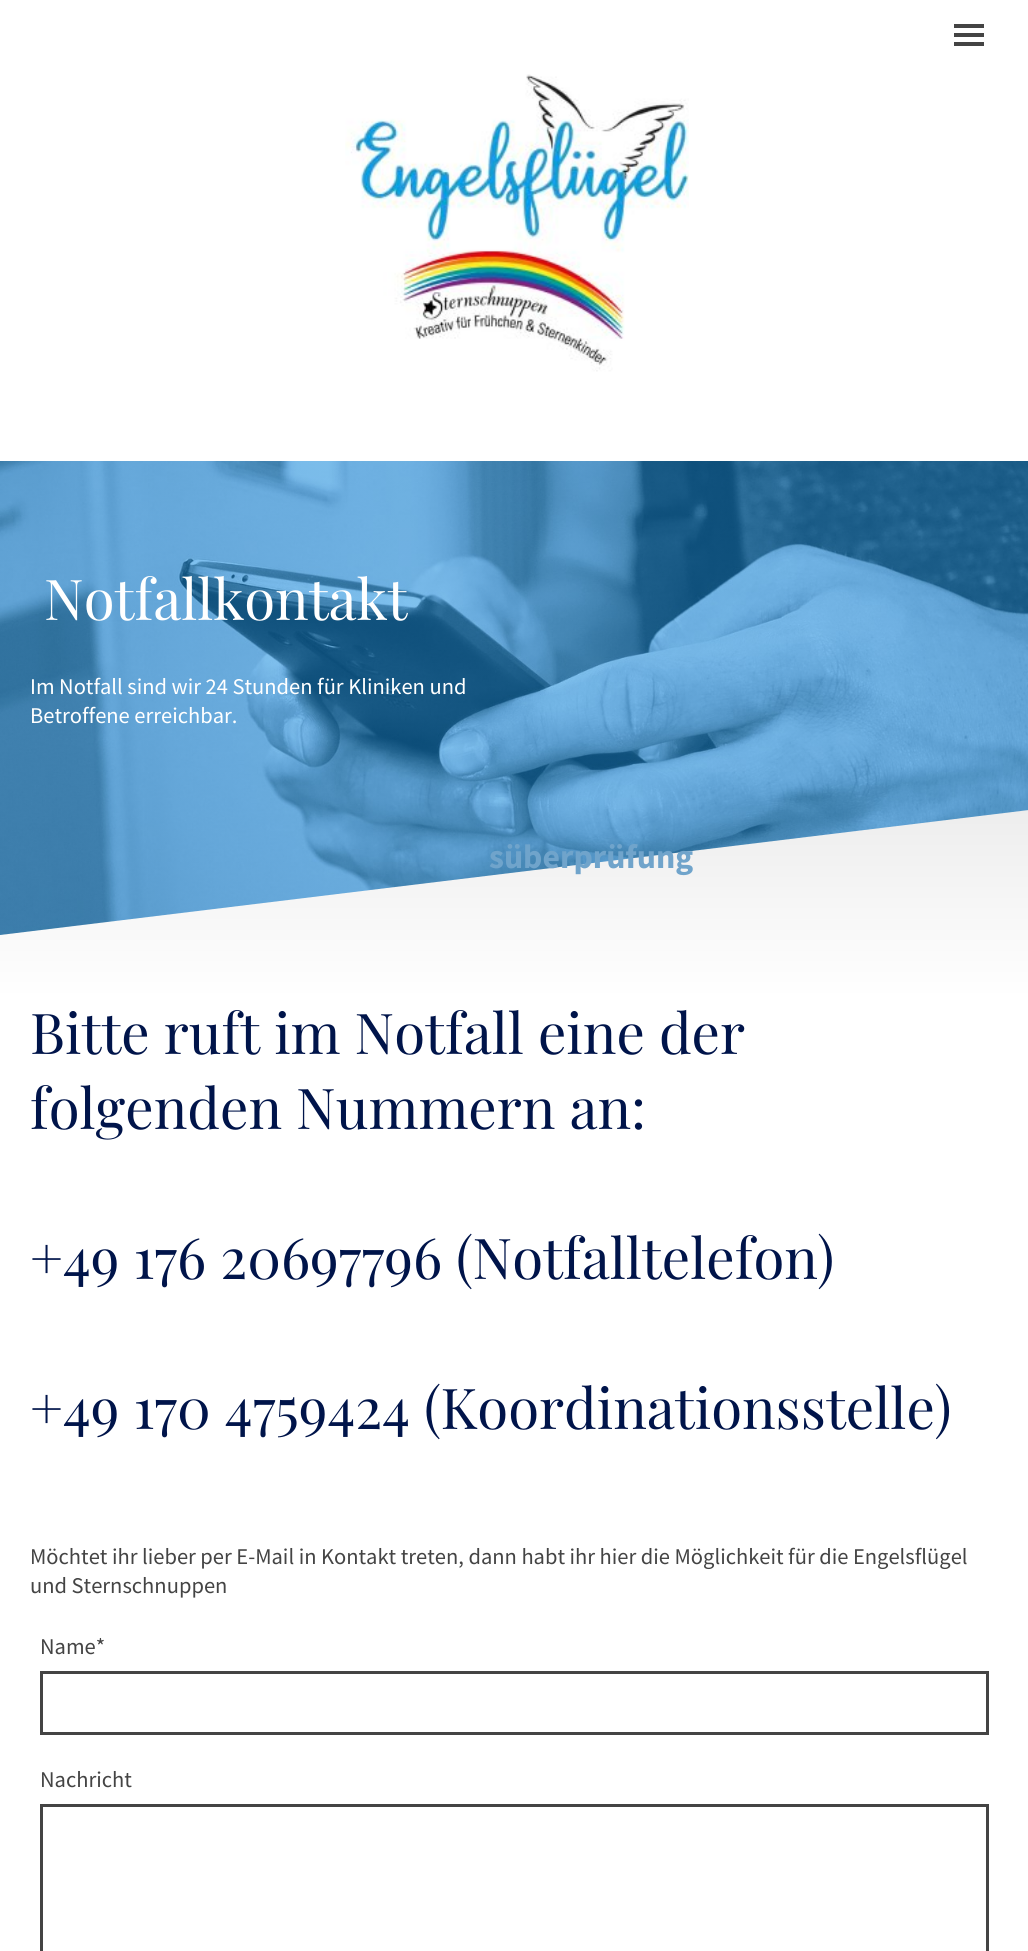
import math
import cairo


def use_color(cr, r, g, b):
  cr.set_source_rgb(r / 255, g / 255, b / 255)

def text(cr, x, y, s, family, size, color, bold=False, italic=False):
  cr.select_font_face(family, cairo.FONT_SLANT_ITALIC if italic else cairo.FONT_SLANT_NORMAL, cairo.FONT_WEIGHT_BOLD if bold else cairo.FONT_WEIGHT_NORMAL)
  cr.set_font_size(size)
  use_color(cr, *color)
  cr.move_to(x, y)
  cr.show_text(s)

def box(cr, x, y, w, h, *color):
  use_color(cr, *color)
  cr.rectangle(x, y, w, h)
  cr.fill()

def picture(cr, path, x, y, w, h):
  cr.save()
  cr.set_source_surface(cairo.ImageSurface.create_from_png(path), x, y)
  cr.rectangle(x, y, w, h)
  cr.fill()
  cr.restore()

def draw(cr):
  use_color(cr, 255, 255, 255)
  cr.paint()
  box(cr, 954, 24, 30, 4, 68, 68, 68)
  box(cr, 954, 33, 30, 4, 68, 68, 68)
  box(cr, 954, 42, 30, 4, 68, 68, 68)
  picture(cr, "img_01.png", 345, 74, 344, 298)
  picture(cr, "img_02.png", 0, 461, 1028, 474)
  use_color(cr, 255, 255, 255)
  cr.new_path()
  cr.move_to(0, 935)
  cr.line_to(0, 1501)
  cr.line_to(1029, 1501)
  cr.line_to(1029, 810)
  cr.close_path()
  cr.fill()
  gradient = cairo.LinearGradient(514, 810, 514, 998)
  gradient.add_color_stop_rgba(0, 0, 0, 0, 0.07)
  gradient.add_color_stop_rgba(1, 0, 0, 0, 0)
  cr.set_source(gradient)
  cr.new_path()
  cr.move_to(0, 935)
  cr.line_to(0, 998)
  cr.line_to(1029, 998)
  cr.line_to(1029, 810)
  cr.close_path()
  cr.fill()
  cr.rectangle(41.5, 1672.5, 946, 61)
  use_color(cr, 68, 68, 68)
  cr.set_line_width(3)
  cr.stroke()
  cr.rectangle(41.5, 1805.5, 946, 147)
  cr.stroke()
  text(cr, 44, 620, "Notfallkontakt", "Playfair Display", 56.25, (255, 255, 255))
  text(cr, 30, 694, "Im Notfall sind wir 24 Stunden für Kliniken und", "Source Sans Pro", 22.5, (255, 255, 255))
  text(cr, 30, 723, "Betroffene erreichbar.", "Source Sans Pro", 22.5, (255, 255, 255))
  text(cr, 30, 1054, "Bitte ruft im Notfall eine der", "Playfair Display", 56.25, (0, 20, 74))
  text(cr, 30, 1129, "folgenden Nummern an:", "Playfair Display", 56.25, (0, 20, 74))
  text(cr, 30, 1279, "+49 176 20697796 (Notfalltelefon)", "Playfair Display", 56.25, (0, 20, 74))
  text(cr, 30, 1429, "+49 170 4759424 (Koordinationsstelle)", "Playfair Display", 56.25, (0, 20, 74))
  text(cr, 30, 1564, "Möchtet ihr lieber per E-Mail in Kontakt treten, dann habt ihr hier die Möglichkeit für die Engelsflügel", "Source Sans Pro", 22.5, (68, 68, 68))
  text(cr, 30, 1593, "und Sternschnuppen", "Source Sans Pro", 22.5, (68, 68, 68))
  text(cr, 40, 1654, "Name*", "Source Sans Pro", 22.5, (68, 68, 68))
  text(cr, 40, 1787, "Nachricht", "Source Sans Pro", 22.5, (68, 68, 68))
  text(cr, 489, 868, "süberprüfung", "Source Sans Pro", 33.75, (112, 164, 203), bold=True)


surface = cairo.ImageSurface(cairo.FORMAT_RGB24, 1028, 1951)
cr = cairo.Context(surface)
options = cairo.FontOptions()
options.set_hint_metrics(cairo.HINT_METRICS_OFF)
options.set_hint_style(cairo.HINT_STYLE_NONE)
cr.set_font_options(options)
cr.set_miter_limit(4)
draw(cr)
surface.write_to_png("out.png")
